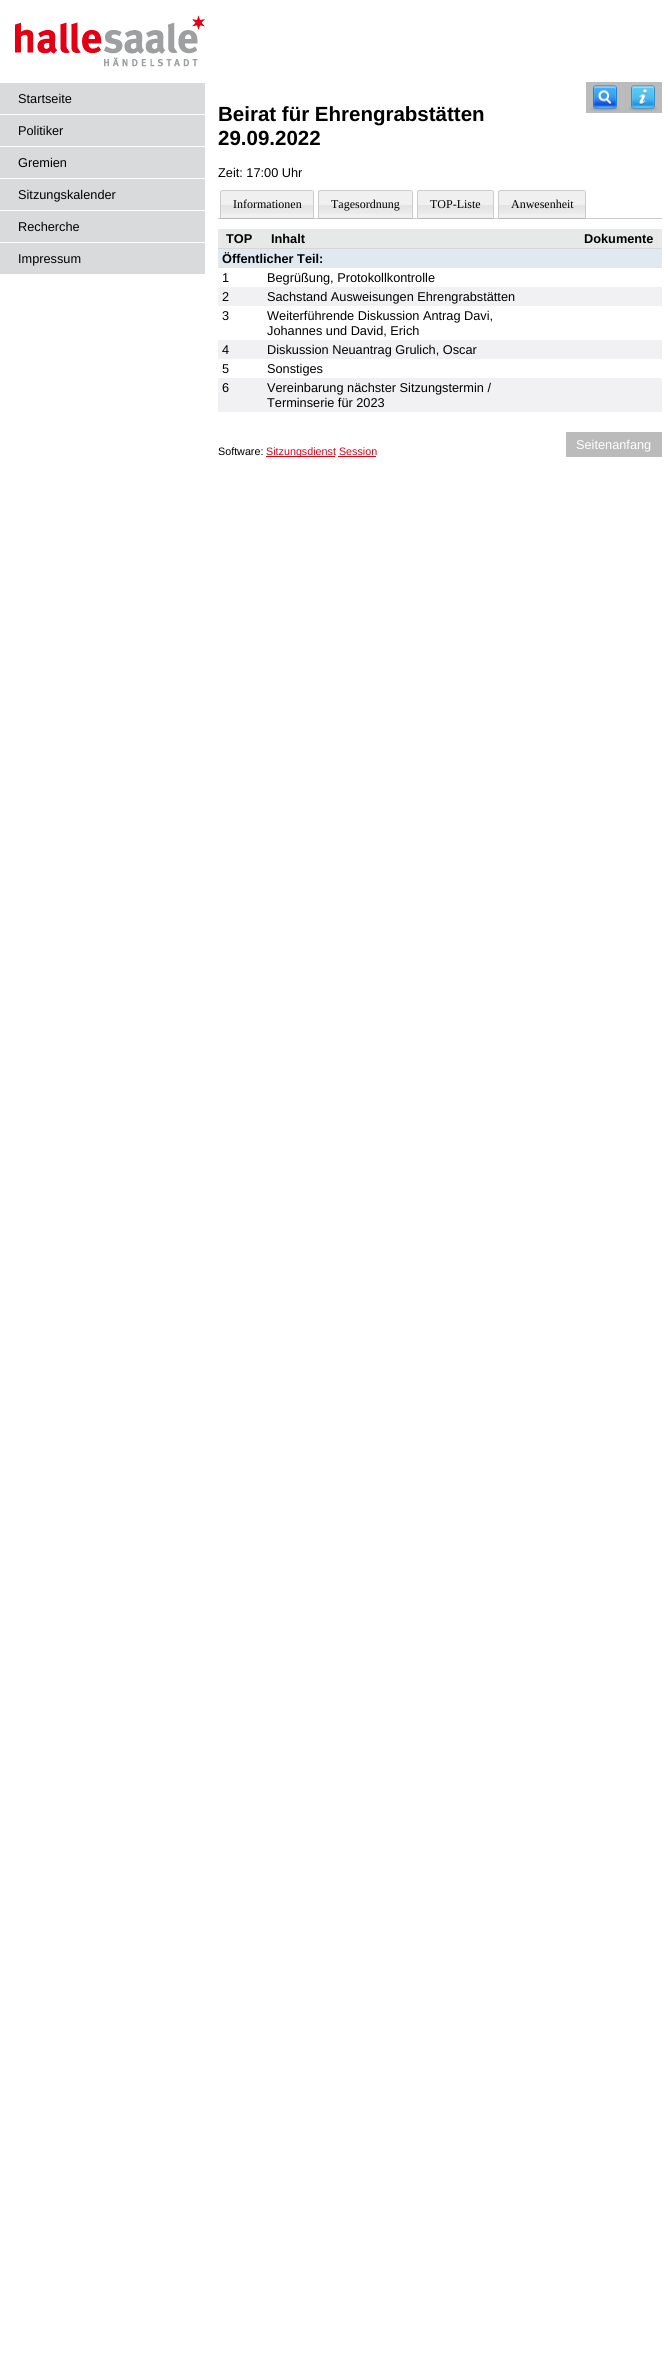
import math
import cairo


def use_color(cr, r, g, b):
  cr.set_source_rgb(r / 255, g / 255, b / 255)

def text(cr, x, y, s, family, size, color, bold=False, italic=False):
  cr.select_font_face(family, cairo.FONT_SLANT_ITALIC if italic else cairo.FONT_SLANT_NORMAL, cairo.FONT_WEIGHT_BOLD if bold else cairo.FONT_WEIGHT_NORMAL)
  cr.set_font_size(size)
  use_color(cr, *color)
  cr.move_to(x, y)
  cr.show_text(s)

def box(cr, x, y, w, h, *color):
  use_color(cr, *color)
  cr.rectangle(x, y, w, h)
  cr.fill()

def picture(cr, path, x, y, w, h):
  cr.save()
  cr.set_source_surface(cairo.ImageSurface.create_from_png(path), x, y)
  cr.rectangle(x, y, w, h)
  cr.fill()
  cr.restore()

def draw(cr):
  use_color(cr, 255, 255, 255)
  cr.paint()
  picture(cr, "img_01.png", 15, 15, 190, 52)
  box(cr, 0, 83, 205, 31, 216, 218, 219)
  box(cr, 0, 115, 205, 31, 216, 218, 219)
  box(cr, 0, 147, 205, 31, 216, 218, 219)
  box(cr, 0, 179, 205, 31, 216, 218, 219)
  box(cr, 0, 211, 205, 31, 216, 218, 219)
  box(cr, 0, 243, 205, 31, 216, 218, 219)
  box(cr, 586, 82, 76, 31, 187, 187, 187)
  picture(cr, "img_02.png", 590, 85, 30, 26)
  picture(cr, "img_03.png", 628, 85, 30, 26)
  box(cr, 218, 218, 444, 1, 204, 204, 204)
  use_color(cr, 240, 240, 240)
  cr.new_path()
  cr.move_to(222, 190)
  cr.line_to(312, 190)
  cr.curve_to(313, 190, 314, 191, 314, 192)
  cr.line_to(314, 219)
  cr.line_to(220, 219)
  cr.line_to(220, 192)
  cr.curve_to(220, 191, 221, 190, 222, 190)
  cr.close_path()
  cr.fill()
  picture(cr, "img_04.png", 221, 205, 92, 9)
  use_color(cr, 204, 204, 204)
  cr.new_path()
  cr.move_to(222, 190)
  cr.line_to(221, 191)
  cr.line_to(222, 192)
  cr.line_to(222, 191)
  cr.line_to(313, 191)
  cr.line_to(312, 190)
  cr.close_path()
  cr.fill()
  cr.new_path()
  cr.move_to(314, 219)
  cr.line_to(314, 192)
  cr.line_to(313.5, 190.5)
  cr.line_to(313, 191)
  cr.line_to(313, 218)
  cr.close_path()
  cr.fill()
  use_color(cr, 183, 183, 183)
  cr.new_path()
  cr.move_to(314, 219)
  cr.line_to(313, 218)
  cr.line_to(221, 218)
  cr.line_to(220, 219)
  cr.close_path()
  cr.fill()
  use_color(cr, 204, 204, 204)
  cr.new_path()
  cr.move_to(220, 219)
  cr.line_to(221, 218)
  cr.line_to(221, 192)
  cr.line_to(221.5, 191.5)
  cr.line_to(220.5, 190.5)
  cr.line_to(220, 192)
  cr.close_path()
  cr.fill()
  use_color(cr, 240, 240, 240)
  cr.new_path()
  cr.move_to(320, 190)
  cr.line_to(411, 190)
  cr.curve_to(412, 190, 413, 191, 413, 192)
  cr.line_to(413, 219)
  cr.line_to(318, 219)
  cr.line_to(318, 192)
  cr.curve_to(318, 191, 319, 190, 320, 190)
  cr.close_path()
  cr.fill()
  picture(cr, "img_05.png", 319, 205, 93, 9)
  use_color(cr, 204, 204, 204)
  cr.new_path()
  cr.move_to(320, 190)
  cr.line_to(319, 191)
  cr.line_to(320, 192)
  cr.line_to(320, 191)
  cr.line_to(412, 191)
  cr.line_to(411, 190)
  cr.close_path()
  cr.fill()
  cr.new_path()
  cr.move_to(413, 219)
  cr.line_to(413, 192)
  cr.line_to(412.5, 190.5)
  cr.line_to(412, 191)
  cr.line_to(412, 218)
  cr.close_path()
  cr.fill()
  use_color(cr, 183, 183, 183)
  cr.new_path()
  cr.move_to(413, 219)
  cr.line_to(412, 218)
  cr.line_to(319, 218)
  cr.line_to(318, 219)
  cr.close_path()
  cr.fill()
  use_color(cr, 204, 204, 204)
  cr.new_path()
  cr.move_to(318, 219)
  cr.line_to(319, 218)
  cr.line_to(319, 192)
  cr.line_to(319.5, 191.5)
  cr.line_to(318.5, 190.5)
  cr.line_to(318, 192)
  cr.close_path()
  cr.fill()
  use_color(cr, 240, 240, 240)
  cr.new_path()
  cr.move_to(419, 190)
  cr.line_to(492, 190)
  cr.curve_to(493, 190, 494, 191, 494, 192)
  cr.line_to(494, 219)
  cr.line_to(417, 219)
  cr.line_to(417, 192)
  cr.curve_to(417, 191, 418, 190, 419, 190)
  cr.close_path()
  cr.fill()
  picture(cr, "img_06.png", 418, 205, 75, 9)
  use_color(cr, 204, 204, 204)
  cr.new_path()
  cr.move_to(419, 190)
  cr.line_to(418, 191)
  cr.line_to(418, 192)
  cr.line_to(419, 191)
  cr.line_to(493, 191)
  cr.line_to(492, 190)
  cr.close_path()
  cr.fill()
  cr.new_path()
  cr.move_to(494, 219)
  cr.line_to(494, 192)
  cr.line_to(493.5, 190.5)
  cr.line_to(493, 191)
  cr.line_to(493, 218)
  cr.close_path()
  cr.fill()
  use_color(cr, 183, 183, 183)
  cr.new_path()
  cr.move_to(494, 219)
  cr.line_to(493, 218)
  cr.line_to(418, 218)
  cr.line_to(417, 219)
  cr.close_path()
  cr.fill()
  use_color(cr, 204, 204, 204)
  cr.new_path()
  cr.move_to(417, 219)
  cr.line_to(418, 218)
  cr.line_to(418, 192)
  cr.line_to(418.5, 191.5)
  cr.line_to(417.5, 190.5)
  cr.line_to(417, 192)
  cr.close_path()
  cr.fill()
  use_color(cr, 240, 240, 240)
  cr.new_path()
  cr.move_to(500, 190)
  cr.line_to(584, 190)
  cr.curve_to(585, 190, 586, 191, 586, 192)
  cr.line_to(586, 219)
  cr.line_to(498, 219)
  cr.line_to(498, 192)
  cr.curve_to(498, 191, 499, 190, 500, 190)
  cr.close_path()
  cr.fill()
  picture(cr, "img_07.png", 499, 205, 86, 9)
  use_color(cr, 204, 204, 204)
  cr.new_path()
  cr.move_to(500, 190)
  cr.line_to(499, 191)
  cr.line_to(500, 192)
  cr.line_to(500, 191)
  cr.line_to(585, 191)
  cr.line_to(584, 190)
  cr.close_path()
  cr.fill()
  cr.new_path()
  cr.move_to(586, 219)
  cr.line_to(586, 192)
  cr.line_to(585.5, 190.5)
  cr.line_to(585, 191)
  cr.line_to(585, 218)
  cr.close_path()
  cr.fill()
  use_color(cr, 183, 183, 183)
  cr.new_path()
  cr.move_to(586, 219)
  cr.line_to(585, 218)
  cr.line_to(499, 218)
  cr.line_to(498, 219)
  cr.close_path()
  cr.fill()
  use_color(cr, 204, 204, 204)
  cr.new_path()
  cr.move_to(498, 219)
  cr.line_to(499, 218)
  cr.line_to(499, 192)
  cr.line_to(499.5, 191.5)
  cr.line_to(498.5, 190.5)
  cr.line_to(498, 192)
  cr.close_path()
  cr.fill()
  box(cr, 218, 229, 444, 19, 231, 232, 232)
  box(cr, 218, 248, 444, 1, 216, 215, 215)
  box(cr, 218, 249, 444, 19, 224, 233, 239)
  box(cr, 218, 287, 444, 19, 241, 240, 242)
  box(cr, 218, 340, 444, 19, 241, 240, 242)
  box(cr, 218, 378, 444, 34, 241, 240, 242)
  box(cr, 266, 456, 69, 1, 227, 0, 19)
  box(cr, 338, 456, 38, 1, 227, 0, 19)
  box(cr, 566, 432, 96, 25, 187, 187, 187)
  text(cr, 18, 103, "Startseite", "Liberation Sans", 12.75, (0, 0, 0))
  text(cr, 18, 135, "Politiker", "Liberation Sans", 12.75, (0, 0, 0))
  text(cr, 18, 167, "Gremien", "Liberation Sans", 12.75, (0, 0, 0))
  text(cr, 18, 199, "Sitzungskalender", "Liberation Sans", 12.75, (0, 0, 0))
  text(cr, 18, 231, "Recherche", "Liberation Sans", 12.75, (0, 0, 0))
  text(cr, 18, 263, "Impressum", "Liberation Sans", 12.75, (0, 0, 0))
  text(cr, 218, 121, "Beirat für Ehrengrabstätten", "Liberation Sans", 20.5, (0, 0, 0), bold=True)
  text(cr, 218, 145, "29.09.2022", "Liberation Sans", 20.5, (0, 0, 0), bold=True)
  text(cr, 218, 177, "Zeit: 17:00 Uhr", "Liberation Sans", 12.75, (0, 0, 0))
  text(cr, 233, 208, "Informationen", "Liberation Serif", 12, (0, 0, 0))
  text(cr, 331, 208, "Tagesordnung", "Liberation Serif", 12, (0, 0, 0))
  text(cr, 430, 208, "TOP-Liste", "Liberation Serif", 12, (0, 0, 0))
  text(cr, 511, 208, "Anwesenheit", "Liberation Serif", 12, (0, 0, 0))
  text(cr, 226, 243, "TOP", "Liberation Sans", 12.75, (0, 0, 0), bold=True)
  text(cr, 271, 243, "Inhalt", "Liberation Sans", 12.75, (0, 0, 0), bold=True)
  text(cr, 584, 243, "Dokumente", "Liberation Sans", 12.75, (0, 0, 0), bold=True)
  text(cr, 222, 263, "Öffentlicher Teil:", "Liberation Sans", 12.75, (0, 0, 0), bold=True)
  text(cr, 222, 282, "1", "Liberation Sans", 12.75, (0, 0, 0))
  text(cr, 267, 282, "Begrüßung, Protokollkontrolle", "Liberation Sans", 12.75, (0, 0, 0))
  text(cr, 222, 301, "2", "Liberation Sans", 12.75, (0, 0, 0))
  text(cr, 267, 301, "Sachstand Ausweisungen Ehrengrabstätten", "Liberation Sans", 12.75, (0, 0, 0))
  text(cr, 222, 320, "3", "Liberation Sans", 12.75, (0, 0, 0))
  text(cr, 267, 320, "Weiterführende Diskussion Antrag Davi,", "Liberation Sans", 12.75, (0, 0, 0))
  text(cr, 267, 335, "Johannes und David, Erich", "Liberation Sans", 12.75, (0, 0, 0))
  text(cr, 222, 354, "4", "Liberation Sans", 12.75, (0, 0, 0))
  text(cr, 267, 354, "Diskussion Neuantrag Grulich, Oscar", "Liberation Sans", 12.75, (0, 0, 0))
  text(cr, 222, 373, "5", "Liberation Sans", 12.75, (0, 0, 0))
  text(cr, 267, 373, "Sonstiges", "Liberation Sans", 12.75, (0, 0, 0))
  text(cr, 222, 392, "6", "Liberation Sans", 12.75, (0, 0, 0))
  text(cr, 267, 392, "Vereinbarung nächster Sitzungstermin /", "Liberation Sans", 12.75, (0, 0, 0))
  text(cr, 267, 407, "Terminserie für 2023", "Liberation Sans", 12.75, (0, 0, 0))
  text(cr, 218, 455, "Software:", "Liberation Sans", 10.75, (0, 0, 0))
  text(cr, 266, 455, "Sitzungsdienst Session", "Liberation Sans", 10.75, (227, 0, 19))
  text(cr, 576, 449, "Seitenanfang", "Liberation Sans", 12.75, (255, 255, 255))


surface = cairo.ImageSurface(cairo.FORMAT_RGB24, 668, 2361)
cr = cairo.Context(surface)
options = cairo.FontOptions()
options.set_hint_metrics(cairo.HINT_METRICS_OFF)
options.set_hint_style(cairo.HINT_STYLE_NONE)
cr.set_font_options(options)
cr.set_miter_limit(4)
draw(cr)
surface.write_to_png("out.png")
